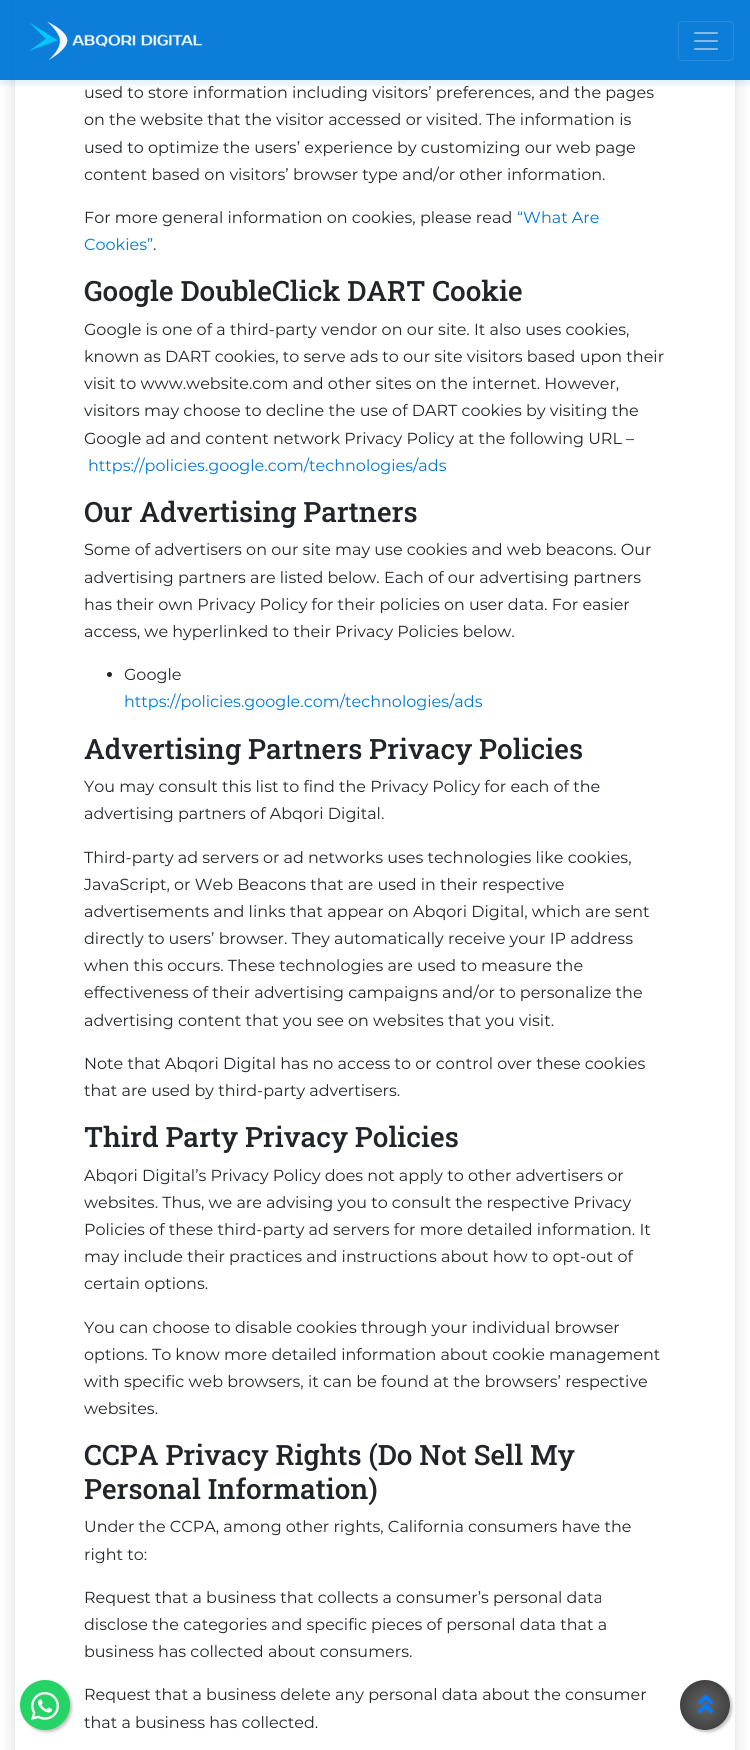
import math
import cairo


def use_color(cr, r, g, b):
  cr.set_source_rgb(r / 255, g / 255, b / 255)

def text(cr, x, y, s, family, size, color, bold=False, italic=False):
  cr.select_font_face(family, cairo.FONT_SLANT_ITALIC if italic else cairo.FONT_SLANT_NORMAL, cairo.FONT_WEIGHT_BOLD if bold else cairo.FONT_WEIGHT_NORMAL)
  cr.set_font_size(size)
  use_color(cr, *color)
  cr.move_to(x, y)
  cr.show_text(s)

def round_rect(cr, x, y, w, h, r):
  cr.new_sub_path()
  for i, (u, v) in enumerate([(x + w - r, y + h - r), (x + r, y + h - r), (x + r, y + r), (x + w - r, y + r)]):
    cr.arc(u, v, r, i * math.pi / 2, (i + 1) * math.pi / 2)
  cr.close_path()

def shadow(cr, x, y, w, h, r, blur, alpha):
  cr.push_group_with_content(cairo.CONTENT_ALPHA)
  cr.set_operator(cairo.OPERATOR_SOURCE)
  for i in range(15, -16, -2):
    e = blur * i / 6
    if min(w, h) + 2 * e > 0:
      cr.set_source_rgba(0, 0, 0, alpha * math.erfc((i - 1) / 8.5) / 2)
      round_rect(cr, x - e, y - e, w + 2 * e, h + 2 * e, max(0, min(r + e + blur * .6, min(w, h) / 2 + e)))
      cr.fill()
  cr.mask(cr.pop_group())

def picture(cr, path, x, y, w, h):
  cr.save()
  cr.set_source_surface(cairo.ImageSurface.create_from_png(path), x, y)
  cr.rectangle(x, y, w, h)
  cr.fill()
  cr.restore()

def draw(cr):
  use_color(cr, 255, 255, 255)
  cr.paint()
  cr.save()
  cr.rectangle(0, 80, 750, 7)
  cr.clip()
  use_color(cr, 0, 120, 212)
  shadow(cr, 0, 5, 750, 80, 0, 2.5, 0.1)
  cr.restore()
  cr.save()
  cr.set_fill_rule(cairo.FILL_RULE_EVEN_ODD)
  cr.new_path()
  cr.move_to(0, 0)
  cr.line_to(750, 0)
  cr.line_to(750, 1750)
  cr.line_to(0, 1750)
  cr.close_path()
  cr.move_to(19, -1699)
  cr.line_to(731, -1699)
  cr.curve_to(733, -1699, 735, -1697, 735, -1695)
  cr.line_to(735, 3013)
  cr.curve_to(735, 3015, 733, 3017, 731, 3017)
  cr.line_to(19, 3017)
  cr.curve_to(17, 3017, 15, 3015, 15, 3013)
  cr.line_to(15, -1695)
  cr.curve_to(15, -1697, 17, -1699, 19, -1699)
  cr.close_path()
  cr.clip()
  use_color(cr, 0, 0, 0)
  shadow(cr, 15, -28, 720, 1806, 4, 8, 0.15)
  cr.restore()
  cr.set_source_rgba(0, 0.471, 0.843, 0.95)
  cr.rectangle(0, 0, 750, 80)
  cr.fill()
  picture(cr, "img_01.png", 30, 21, 173, 39)
  round_rect(cr, 678.5, 21.5, 55, 39, 3.5)
  use_color(cr, 37, 140, 221)
  cr.set_line_width(1)
  cr.stroke()
  picture(cr, "img_02.png", 694, 32, 24, 18)
  use_color(cr, 128, 128, 128)
  shadow(cr, 22, 1682, 50, 50, 25, 1.5, 0.5)
  use_color(cr, 37, 211, 102)
  cr.arc(45, 1705, 25, 0, 2 * math.pi)
  cr.fill()
  picture(cr, "img_03.png", 31, 1692, 28, 28)
  use_color(cr, 33, 37, 41)
  cr.arc(109.5, 674.5, 2.5, 0, 2 * math.pi)
  cr.fill()
  cr.save()
  cr.set_fill_rule(cairo.FILL_RULE_EVEN_ODD)
  cr.new_path()
  cr.move_to(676, 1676)
  cr.line_to(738, 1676)
  cr.line_to(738, 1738)
  cr.line_to(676, 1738)
  cr.close_path()
  cr.move_to(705, 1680)
  cr.curve_to(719, 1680, 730, 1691, 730, 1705)
  cr.curve_to(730, 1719, 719, 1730, 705, 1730)
  cr.curve_to(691, 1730, 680, 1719, 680, 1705)
  cr.curve_to(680, 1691, 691, 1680, 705, 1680)
  cr.close_path()
  cr.clip()
  use_color(cr, 128, 128, 128)
  shadow(cr, 682, 1682, 50, 50, 25, 1.5, 0.5)
  cr.restore()
  gradient = cairo.RadialGradient(705, 1705, 0, 705, 1705, 35)
  gradient.add_color_stop_rgba(0, 0, 0, 0, 0.6)
  gradient.add_color_stop_rgba(1, 0, 0, 0, 0.8)
  cr.set_source(gradient)
  cr.arc(705, 1705, 25, 0, 2 * math.pi)
  cr.fill()
  picture(cr, "img_04.png", 698, 1694, 15, 20)
  text(cr, 84, 98, "used to store information including visitors’ preferences, and the pages", "Montserrat", 16, (33, 37, 41))
  text(cr, 84, 125, "on the website that the visitor accessed or visited. The information is", "Montserrat", 16, (33, 37, 41))
  text(cr, 84, 153, "used to optimize the users’ experience by customizing our web page", "Montserrat", 16, (33, 37, 41))
  text(cr, 84, 180, "content based on visitors’ browser type and/or other information.", "Montserrat", 16, (33, 37, 41))
  text(cr, 84, 223, "For more general information on cookies, please read", "Montserrat", 16, (33, 37, 41))
  text(cr, 517, 223, "“What Are", "Montserrat", 16, (0, 120, 215))
  text(cr, 84, 250, "Cookies”", "Montserrat", 16, (0, 120, 215))
  text(cr, 153, 250, ".", "Montserrat", 16, (33, 37, 41))
  text(cr, 84, 301, "Google DoubleClick DART Cookie", "Roboto Slab Medium", 28, (33, 37, 41))
  text(cr, 84, 335, "Google is one of a third-party vendor on our site. It also uses cookies,", "Montserrat", 16, (33, 37, 41))
  text(cr, 84, 362, "known as DART cookies, to serve ads to our site visitors based upon their", "Montserrat", 16, (33, 37, 41))
  text(cr, 84, 389, "visit to www.website.com and other sites on the internet. However,", "Montserrat", 16, (33, 37, 41))
  text(cr, 84, 416, "visitors may choose to decline the use of DART cookies by visiting the", "Montserrat", 16, (33, 37, 41))
  text(cr, 84, 444, "Google ad and content network Privacy Policy at the following URL –", "Montserrat", 16, (33, 37, 41))
  text(cr, 88, 471, "https://policies.google.com/technologies/ads", "Montserrat", 16, (0, 120, 215))
  text(cr, 84, 522, "Our Advertising Partners", "Roboto Slab Medium", 28, (33, 37, 41))
  text(cr, 84, 555, "Some of advertisers on our site may use cookies and web beacons. Our", "Montserrat", 16, (33, 37, 41))
  text(cr, 84, 583, "advertising partners are listed below. Each of our advertising partners", "Montserrat", 16, (33, 37, 41))
  text(cr, 84, 610, "has their own Privacy Policy for their policies on user data. For easier", "Montserrat", 16, (33, 37, 41))
  text(cr, 84, 637, "access, we hyperlinked to their Privacy Policies below.", "Montserrat", 16, (33, 37, 41))
  text(cr, 124, 680, "Google", "Montserrat", 16, (33, 37, 41))
  text(cr, 124, 707, "https://policies.google.com/technologies/ads", "Montserrat", 16, (0, 120, 215))
  text(cr, 84, 759, "Advertising Partners Privacy Policies", "Roboto Slab Medium", 28, (33, 37, 41))
  text(cr, 84, 792, "You may consult this list to find the Privacy Policy for each of the", "Montserrat", 16, (33, 37, 41))
  text(cr, 84, 819, "advertising partners of Abqori Digital.", "Montserrat", 16, (33, 37, 41))
  text(cr, 84, 863, "Third-party ad servers or ad networks uses technologies like cookies,", "Montserrat", 16, (33, 37, 41))
  text(cr, 84, 890, "JavaScript, or Web Beacons that are used in their respective", "Montserrat", 16, (33, 37, 41))
  text(cr, 84, 917, "advertisements and links that appear on Abqori Digital, which are sent", "Montserrat", 16, (33, 37, 41))
  text(cr, 84, 944, "directly to users’ browser. They automatically receive your IP address", "Montserrat", 16, (33, 37, 41))
  text(cr, 84, 971, "when this occurs. These technologies are used to measure the", "Montserrat", 16, (33, 37, 41))
  text(cr, 84, 998, "effectiveness of their advertising campaigns and/or to personalize the", "Montserrat", 16, (33, 37, 41))
  text(cr, 84, 1026, "advertising content that you see on websites that you visit.", "Montserrat", 16, (33, 37, 41))
  text(cr, 84, 1069, "Note that Abqori Digital has no access to or control over these cookies", "Montserrat", 16, (33, 37, 41))
  text(cr, 84, 1096, "that are used by third-party advertisers.", "Montserrat", 16, (33, 37, 41))
  text(cr, 84, 1147, "Third Party Privacy Policies", "Roboto Slab Medium", 28, (33, 37, 41))
  text(cr, 84, 1181, "Abqori Digital’s Privacy Policy does not apply to other advertisers or", "Montserrat", 16, (33, 37, 41))
  text(cr, 84, 1208, "websites. Thus, we are advising you to consult the respective Privacy", "Montserrat", 16, (33, 37, 41))
  text(cr, 84, 1235, "Policies of these third-party ad servers for more detailed information. It", "Montserrat", 16, (33, 37, 41))
  text(cr, 84, 1262, "may include their practices and instructions about how to opt-out of", "Montserrat", 16, (33, 37, 41))
  text(cr, 84, 1289, "certain options.", "Montserrat", 16, (33, 37, 41))
  text(cr, 84, 1333, "You can choose to disable cookies through your individual browser", "Montserrat", 16, (33, 37, 41))
  text(cr, 84, 1360, "options. To know more detailed information about cookie management", "Montserrat", 16, (33, 37, 41))
  text(cr, 84, 1387, "with specific web browsers, it can be found at the browsers’ respective", "Montserrat", 16, (33, 37, 41))
  text(cr, 84, 1414, "websites.", "Montserrat", 16, (33, 37, 41))
  text(cr, 84, 1465, "CCPA Privacy Rights (Do Not Sell My", "Roboto Slab Medium", 28, (33, 37, 41))
  text(cr, 84, 1499, "Personal Information)", "Roboto Slab Medium", 28, (33, 37, 41))
  text(cr, 84, 1532, "Under the CCPA, among other rights, California consumers have the", "Montserrat", 16, (33, 37, 41))
  text(cr, 84, 1560, "right to:", "Montserrat", 16, (33, 37, 41))
  text(cr, 84, 1603, "Request that a business that collects a consumer’s personal data", "Montserrat", 16, (33, 37, 41))
  text(cr, 84, 1630, "disclose the categories and specific pieces of personal data that a", "Montserrat", 16, (33, 37, 41))
  text(cr, 84, 1657, "business has collected about consumers.", "Montserrat", 16, (33, 37, 41))
  text(cr, 84, 1700, "Request that a business delete any personal data about the consumer", "Montserrat", 16, (33, 37, 41))
  text(cr, 84, 1728, "that a business has collected.", "Montserrat", 16, (33, 37, 41))


surface = cairo.ImageSurface(cairo.FORMAT_RGB24, 750, 1750)
cr = cairo.Context(surface)
options = cairo.FontOptions()
options.set_hint_metrics(cairo.HINT_METRICS_OFF)
options.set_hint_style(cairo.HINT_STYLE_NONE)
cr.set_font_options(options)
cr.set_miter_limit(4)
draw(cr)
surface.write_to_png("out.png")
